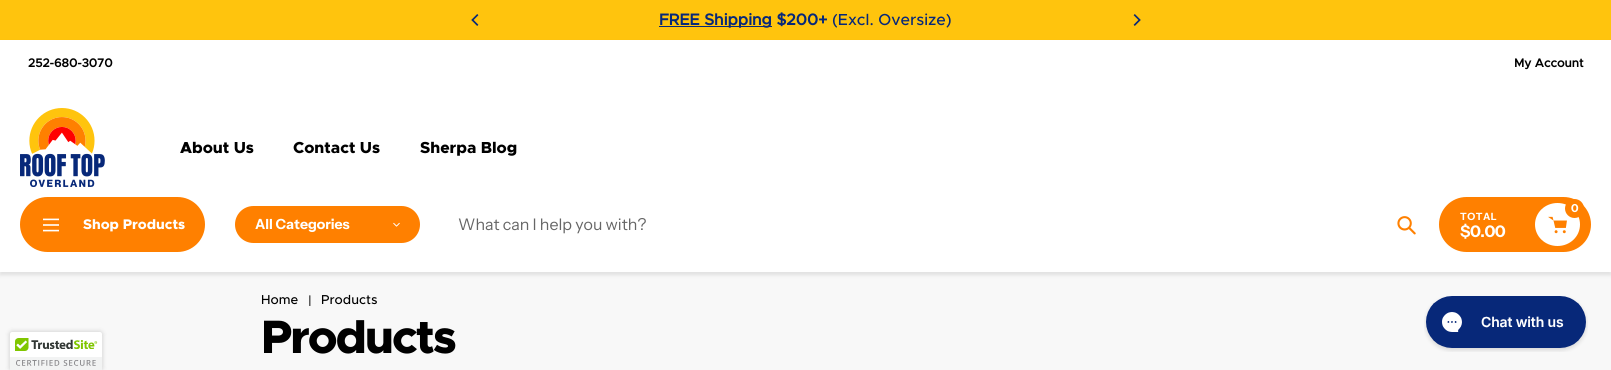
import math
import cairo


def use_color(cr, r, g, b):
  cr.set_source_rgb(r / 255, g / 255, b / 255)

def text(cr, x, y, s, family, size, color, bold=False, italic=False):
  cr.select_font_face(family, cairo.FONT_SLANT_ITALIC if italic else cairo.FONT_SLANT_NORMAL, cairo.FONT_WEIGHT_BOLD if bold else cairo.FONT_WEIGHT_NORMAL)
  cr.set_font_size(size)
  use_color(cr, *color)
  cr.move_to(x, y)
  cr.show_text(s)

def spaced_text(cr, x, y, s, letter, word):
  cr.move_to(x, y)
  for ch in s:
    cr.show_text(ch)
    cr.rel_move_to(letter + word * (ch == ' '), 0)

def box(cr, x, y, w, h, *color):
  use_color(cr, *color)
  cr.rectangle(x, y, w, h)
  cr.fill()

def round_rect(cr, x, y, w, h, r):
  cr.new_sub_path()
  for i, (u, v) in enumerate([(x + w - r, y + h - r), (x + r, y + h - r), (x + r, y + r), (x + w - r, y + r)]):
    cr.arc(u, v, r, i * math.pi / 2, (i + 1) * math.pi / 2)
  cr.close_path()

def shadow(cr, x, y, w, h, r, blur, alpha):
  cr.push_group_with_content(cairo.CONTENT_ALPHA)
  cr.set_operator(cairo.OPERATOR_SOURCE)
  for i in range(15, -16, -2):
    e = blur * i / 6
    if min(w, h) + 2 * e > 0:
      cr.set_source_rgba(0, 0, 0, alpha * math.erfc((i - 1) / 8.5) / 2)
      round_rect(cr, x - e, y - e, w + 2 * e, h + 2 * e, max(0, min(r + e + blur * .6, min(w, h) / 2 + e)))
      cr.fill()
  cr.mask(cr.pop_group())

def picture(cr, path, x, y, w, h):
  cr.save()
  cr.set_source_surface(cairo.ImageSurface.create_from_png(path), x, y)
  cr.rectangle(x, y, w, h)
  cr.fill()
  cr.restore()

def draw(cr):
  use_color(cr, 248, 248, 248)
  cr.paint()
  box(cr, 0, 0, 1611, 40, 255, 196, 13)
  picture(cr, "img_01.png", 471, 14, 8, 12)
  box(cr, 659, 26, 113, 1, 7, 40, 121)
  picture(cr, "img_02.png", 1133, 14, 8, 12)
  use_color(cr, 0, 0, 0)
  shadow(cr, 0, 43, 1611, 232, 0, 2, 0.1)
  box(cr, 0, 40, 1611, 232, 255, 255, 255)
  picture(cr, "img_03.png", 20, 108, 85, 79)
  use_color(cr, 255, 128, 0)
  round_rect(cr, 20, 197, 185, 55, 27.5)
  cr.fill()
  picture(cr, "img_04.png", 43, 218, 16, 14)
  round_rect(cr, 235, 206, 185, 37, 18.5)
  cr.fill()
  picture(cr, "img_05.png", 393, 222, 7, 5)
  picture(cr, "img_06.png", 1397, 216, 19, 19)
  round_rect(cr, 1439, 197, 152, 55, 27.5)
  cr.fill()
  use_color(cr, 255, 255, 255)
  cr.new_path()
  cr.move_to(1557.5, 203)
  cr.curve_to(1570, 203, 1580, 212.5, 1580, 224.5)
  cr.curve_to(1580, 236.5, 1570, 246, 1557.5, 246)
  cr.curve_to(1545, 246, 1535, 236.5, 1535, 224.5)
  cr.curve_to(1535, 212.5, 1545, 203, 1557.5, 203)
  cr.close_path()
  cr.fill()
  picture(cr, "img_07.png", 1548, 216, 19, 18)
  use_color(cr, 255, 128, 0)
  cr.arc(1574.5, 208.5, 9.5, 0, 2 * math.pi)
  cr.fill()
  use_color(cr, 0, 0, 0)
  shadow(cr, 10, 332, 92, 38, 2, 2.5, 0.2)
  use_color(cr, 255, 255, 255)
  cr.new_path()
  cr.move_to(12, 332)
  cr.line_to(100, 332)
  cr.curve_to(101, 332, 102, 333, 102, 334)
  cr.line_to(102, 370)
  cr.line_to(10, 370)
  cr.line_to(10, 334)
  cr.curve_to(10, 333, 11, 332, 12, 332)
  cr.close_path()
  cr.fill()
  picture(cr, "img_08.png", 10, 338, 92, 32)
  picture(cr, "img_09.png", 1424, 296, 164, 56)
  text(cr, 659, 25, "FREE Shipping $200+", "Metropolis", 16, (7, 40, 121), bold=True)
  text(cr, 832, 25, "(Excl. Oversize)", "Metropolis Medium", 16, (7, 40, 121))
  text(cr, 28, 67, "252-680-3070", "Metropolis", 12, (0, 0, 0), bold=True)
  text(cr, 1514, 67, "My Account", "Metropolis", 12, (0, 0, 0), bold=True)
  text(cr, 180, 153, "About Us", "Metropolis ExtraBold", 16, (0, 0, 0))
  text(cr, 293, 153, "Contact Us", "Metropolis ExtraBold", 16, (0, 0, 0))
  text(cr, 420, 153, "Sherpa Blog", "Metropolis ExtraBold", 16, (0, 0, 0))
  text(cr, 83, 229, "Shop Products", "Metropolis ExtraBold", 14, (255, 255, 255))
  text(cr, 255, 229, "All Categories", "Instrument Sans", 14, (255, 255, 255), bold=True)
  text(cr, 458, 230, "What can I help you with?", "Instrument Sans", 16, (102, 102, 102))
  text(cr, 1571, 212, "0", "Instrument Sans", 11, (255, 255, 255), bold=True)
  cr.set_font_size(10)
  spaced_text(cr, 1460, 220, "TOTAL", 0.5, 0)
  cr.set_font_size(16)
  spaced_text(cr, 1460, 237, "$0.00", -0.5, 0)
  text(cr, 261, 304, "Home", "Metropolis Medium", 13, (0, 0, 0))
  text(cr, 308, 305, "|", "Metropolis Medium", 13, (0, 0, 0))
  text(cr, 321, 304, "Products", "Metropolis Medium", 13, (0, 0, 0))
  cr.select_font_face("Metropolis ExtraBold")
  cr.set_font_size(47)
  spaced_text(cr, 261, 353, "Products", -2, 0)


surface = cairo.ImageSurface(cairo.FORMAT_RGB24, 1611, 370)
cr = cairo.Context(surface)
options = cairo.FontOptions()
options.set_hint_metrics(cairo.HINT_METRICS_OFF)
options.set_hint_style(cairo.HINT_STYLE_NONE)
cr.set_font_options(options)
cr.set_miter_limit(4)
draw(cr)
surface.write_to_png("out.png")
